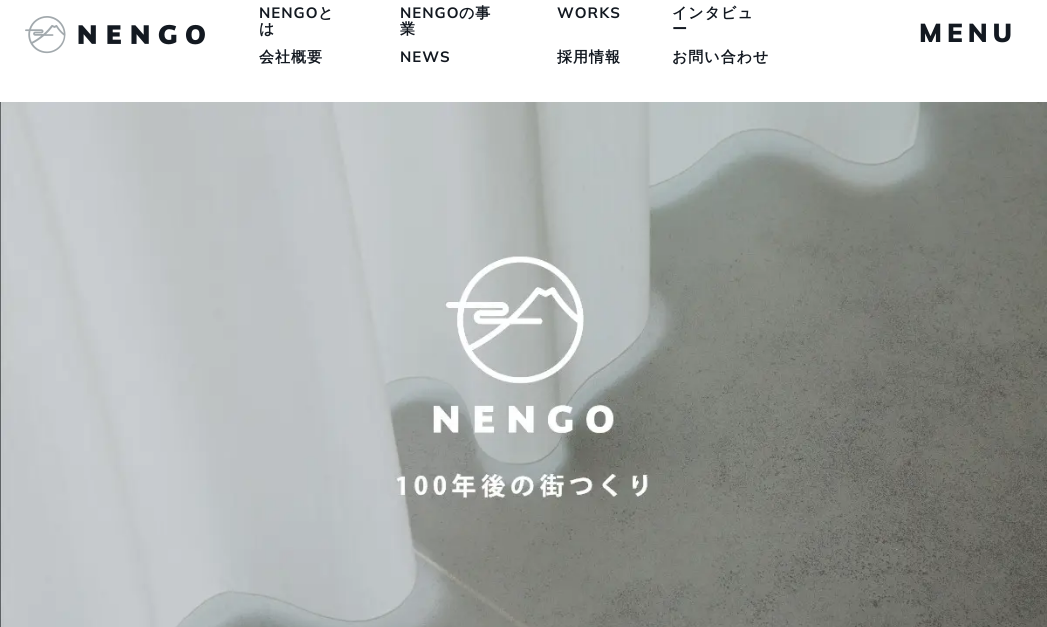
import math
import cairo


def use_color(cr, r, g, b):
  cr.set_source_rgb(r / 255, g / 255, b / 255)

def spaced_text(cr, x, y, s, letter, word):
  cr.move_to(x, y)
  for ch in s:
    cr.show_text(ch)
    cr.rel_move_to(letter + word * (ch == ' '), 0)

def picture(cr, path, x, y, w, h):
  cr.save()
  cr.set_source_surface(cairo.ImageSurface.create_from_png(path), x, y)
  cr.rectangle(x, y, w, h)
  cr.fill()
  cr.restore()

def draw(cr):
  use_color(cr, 255, 255, 255)
  cr.paint()
  picture(cr, "img_01.png", 25, 16, 180, 38)
  picture(cr, "img_02.png", 0, 102, 1047, 525)
  cr.select_font_face("Mulish", cairo.FONT_SLANT_NORMAL, cairo.FONT_WEIGHT_BOLD)
  cr.set_font_size(15)
  use_color(cr, 19, 25, 33)
  spaced_text(cr, 259, 18, "NENGO", 1, 0)
  cr.select_font_face("WenQuanYi Zen Hei", cairo.FONT_SLANT_NORMAL, cairo.FONT_WEIGHT_BOLD)
  spaced_text(cr, 318, 18, "と", 1, 0)
  spaced_text(cr, 259, 34, "は", 1, 0)
  cr.select_font_face("Mulish", cairo.FONT_SLANT_NORMAL, cairo.FONT_WEIGHT_BOLD)
  spaced_text(cr, 400, 18, "NENGO", 1, 0)
  cr.select_font_face("WenQuanYi Zen Hei", cairo.FONT_SLANT_NORMAL, cairo.FONT_WEIGHT_BOLD)
  spaced_text(cr, 459, 18, "の事", 1, 0)
  spaced_text(cr, 400, 34, "業", 1, 0)
  cr.select_font_face("Mulish", cairo.FONT_SLANT_NORMAL, cairo.FONT_WEIGHT_BOLD)
  spaced_text(cr, 557, 18, "WORKS", 1, 0)
  cr.select_font_face("WenQuanYi Zen Hei", cairo.FONT_SLANT_NORMAL, cairo.FONT_WEIGHT_BOLD)
  spaced_text(cr, 672, 18, "インタビュ", 1, 0)
  spaced_text(cr, 672, 34, "ー", 1, 0)
  spaced_text(cr, 259, 62, "会社概要", 1, 0)
  cr.select_font_face("Mulish", cairo.FONT_SLANT_NORMAL, cairo.FONT_WEIGHT_BOLD)
  spaced_text(cr, 400, 62, "NEWS", 1, 0)
  cr.select_font_face("WenQuanYi Zen Hei", cairo.FONT_SLANT_NORMAL, cairo.FONT_WEIGHT_BOLD)
  spaced_text(cr, 557, 62, "採用情報", 1, 0)
  spaced_text(cr, 672, 62, "お問い合わせ", 1, 0)
  cr.select_font_face("Mulish Black")
  cr.set_font_size(26)
  spaced_text(cr, 919, 42, "MENU", 5, 0)


surface = cairo.ImageSurface(cairo.FORMAT_RGB24, 1047, 627)
cr = cairo.Context(surface)
options = cairo.FontOptions()
options.set_hint_metrics(cairo.HINT_METRICS_OFF)
options.set_hint_style(cairo.HINT_STYLE_NONE)
cr.set_font_options(options)
cr.set_miter_limit(4)
draw(cr)
surface.write_to_png("out.png")
